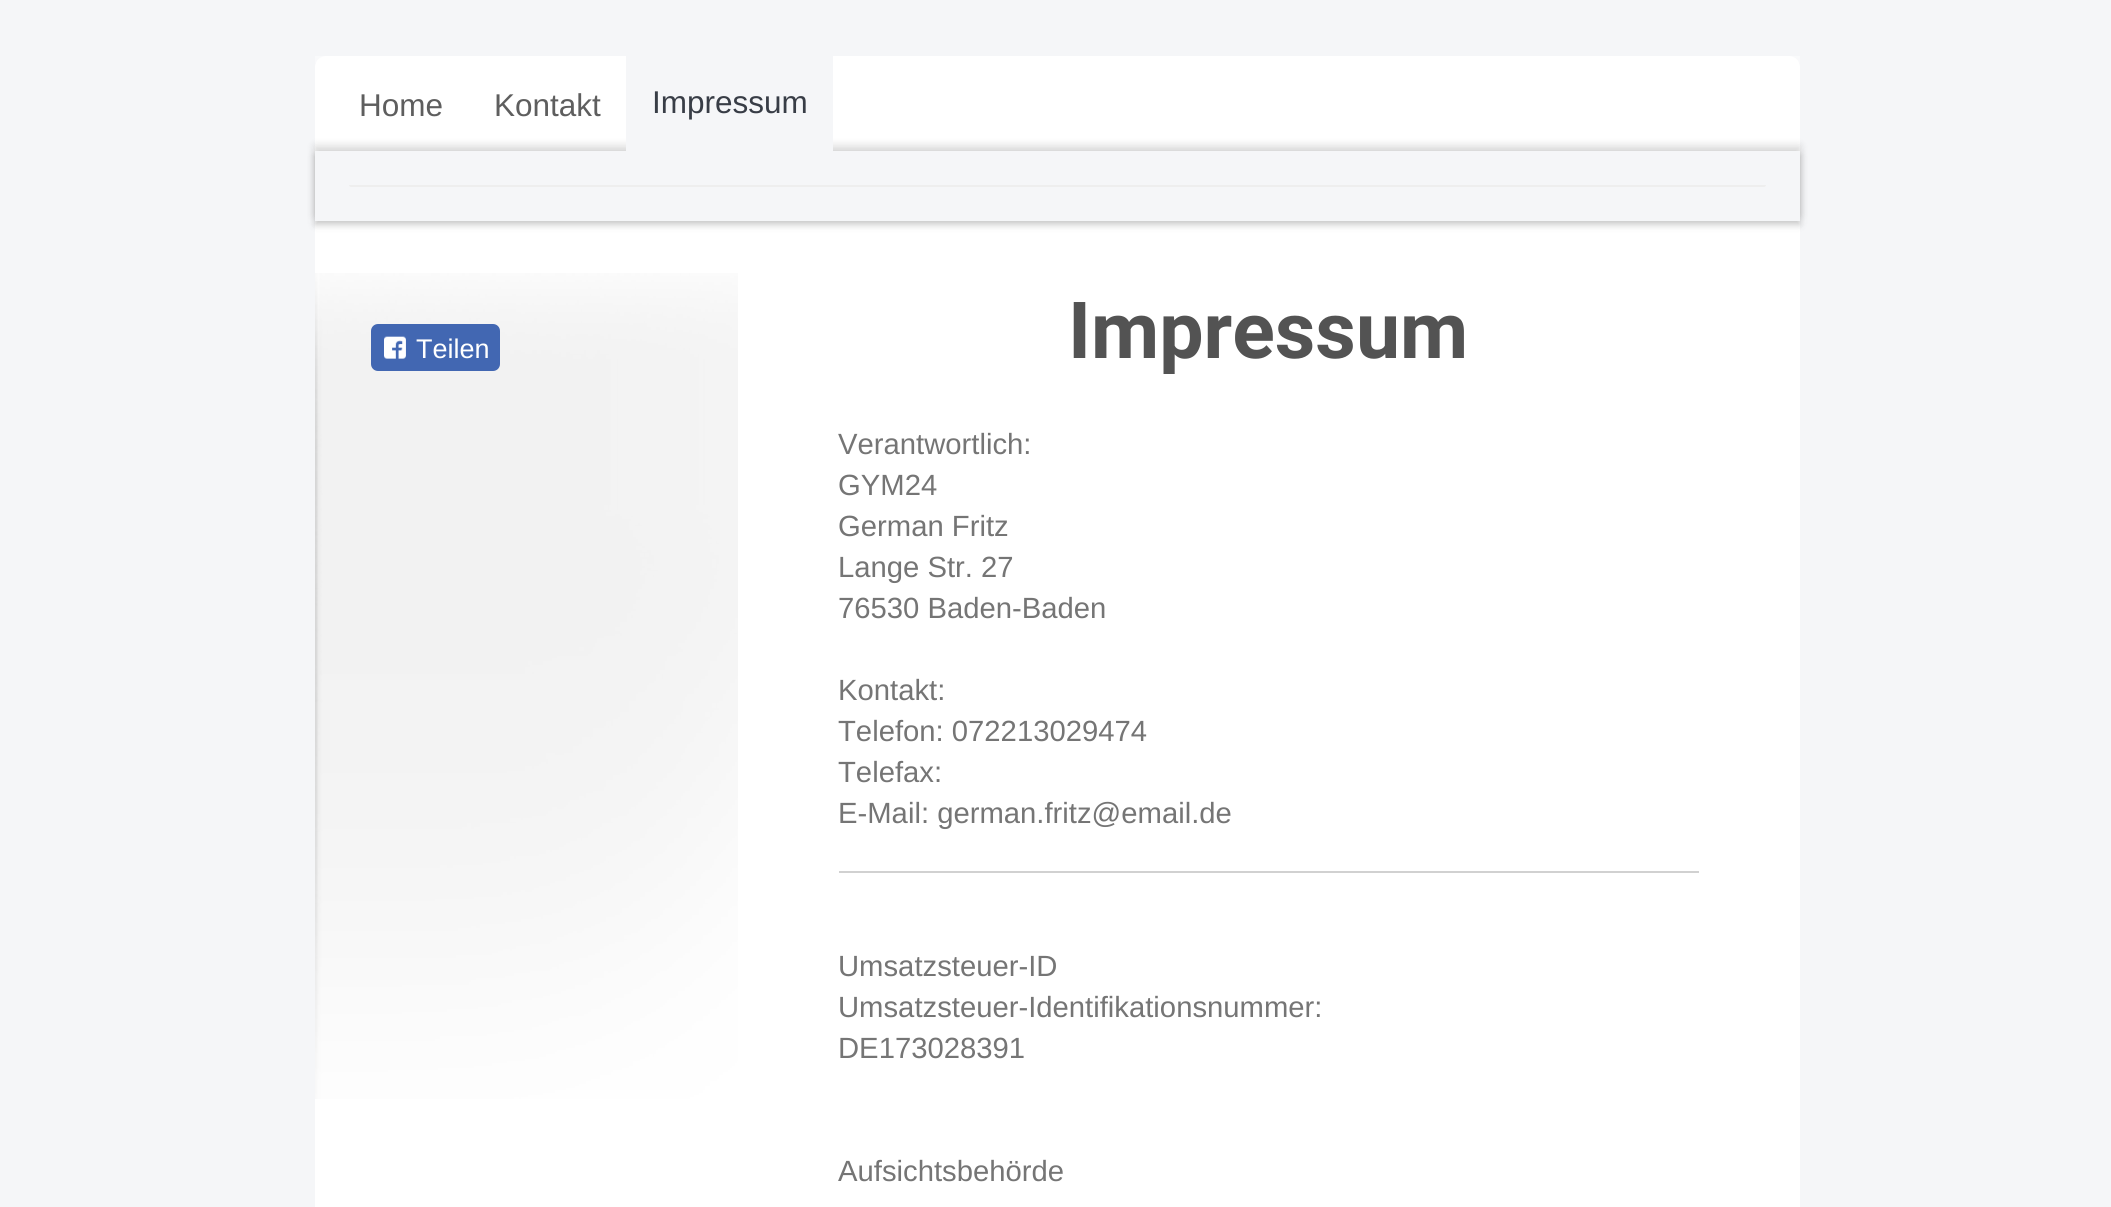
import math
import cairo


def use_color(cr, r, g, b):
  cr.set_source_rgb(r / 255, g / 255, b / 255)

def text(cr, x, y, s, family, size, color, bold=False, italic=False):
  cr.select_font_face(family, cairo.FONT_SLANT_ITALIC if italic else cairo.FONT_SLANT_NORMAL, cairo.FONT_WEIGHT_BOLD if bold else cairo.FONT_WEIGHT_NORMAL)
  cr.set_font_size(size)
  use_color(cr, *color)
  cr.move_to(x, y)
  cr.show_text(s)

def box(cr, x, y, w, h, *color):
  use_color(cr, *color)
  cr.rectangle(x, y, w, h)
  cr.fill()

def round_rect(cr, x, y, w, h, r):
  cr.new_sub_path()
  for i, (u, v) in enumerate([(x + w - r, y + h - r), (x + r, y + h - r), (x + r, y + r), (x + w - r, y + r)]):
    cr.arc(u, v, r, i * math.pi / 2, (i + 1) * math.pi / 2)
  cr.close_path()

def shadow(cr, x, y, w, h, r, blur, alpha):
  cr.push_group_with_content(cairo.CONTENT_ALPHA)
  cr.set_operator(cairo.OPERATOR_SOURCE)
  for i in range(15, -16, -2):
    e = blur * i / 6
    if min(w, h) + 2 * e > 0:
      cr.set_source_rgba(0, 0, 0, alpha * math.erfc((i - 1) / 8.5) / 2)
      round_rect(cr, x - e, y - e, w + 2 * e, h + 2 * e, max(0, min(r + e + blur * .6, min(w, h) / 2 + e)))
      cr.fill()
  cr.mask(cr.pop_group())

def picture(cr, path, x, y, w, h):
  cr.save()
  cr.set_source_surface(cairo.ImageSurface.create_from_png(path), x, y)
  cr.rectangle(x, y, w, h)
  cr.fill()
  cr.restore()

def draw(cr):
  use_color(cr, 245, 246, 248)
  cr.paint()
  use_color(cr, 255, 255, 255)
  cr.new_path()
  cr.move_to(326, 56)
  cr.line_to(1789, 56)
  cr.curve_to(1795, 56, 1800, 61, 1800, 67)
  cr.line_to(1800, 153)
  cr.line_to(315, 153)
  cr.line_to(315, 67)
  cr.curve_to(315, 61, 320, 56, 326, 56)
  cr.close_path()
  cr.fill()
  gradient = cairo.LinearGradient(288, 56, 288, 153)
  gradient.add_color_stop_rgba(0, 1, 1, 1, 0.4)
  gradient.add_color_stop_rgba(1, 1, 1, 1, 0)
  cr.set_source(gradient)
  cr.rectangle(315, 56, 1485, 7)
  cr.fill()
  box(cr, 315, 221, 1485, 986, 255, 255, 255)
  use_color(cr, 0, 0, 0)
  shadow(cr, 315, 146, 1485, 70, 0, 4.5, 0.15)
  shadow(cr, 315, 155, 1485, 70, 0, 3.5, 0.2)
  box(cr, 315, 151, 1485, 70, 245, 246, 248)
  cr.new_path()
  cr.move_to(637, 43)
  cr.line_to(822, 43)
  cr.curve_to(828, 43, 833, 48, 833, 54)
  cr.line_to(833, 153)
  cr.line_to(626, 153)
  cr.line_to(626, 54)
  cr.curve_to(626, 48, 631, 43, 637, 43)
  cr.close_path()
  cr.fill()
  cr.save()
  cr.new_path()
  cr.move_to(349, 185)
  cr.line_to(1766, 185)
  cr.curve_to(1766, 186, 1765, 187, 1764, 187)
  cr.line_to(351, 187)
  cr.curve_to(350, 187, 349, 186, 349, 185)
  cr.close_path()
  cr.clip()
  box(cr, 349, 185, 1417, 2, 238, 238, 238)
  cr.restore()
  picture(cr, "img_01.png", 315, 273, 423, 826)
  use_color(cr, 66, 103, 178)
  round_rect(cr, 371, 324, 129, 47, 7)
  cr.fill()
  picture(cr, "img_02.png", 384, 336, 22, 23)
  box(cr, 839, 871, 860, 2, 209, 209, 209)
  text(cr, 359, 116, "Home", "Liberation Sans", 31.5, (94, 94, 94))
  text(cr, 494, 116, "Kontakt", "Liberation Sans", 31.5, (94, 94, 94))
  text(cr, 652, 113, "Impressum", "Liberation Sans", 31.5, (56, 61, 70))
  text(cr, 416, 358, "Teilen", "Liberation Sans", 27, (255, 255, 255))
  text(cr, 1068, 358, "Impressum", "Roboto", 78.75, (83, 83, 83), bold=True)
  text(cr, 838, 454, "Verantwortlich:", "Liberation Sans", 29.25, (117, 117, 117))
  text(cr, 838, 495, "GYM24", "Liberation Sans", 29.25, (117, 117, 117))
  text(cr, 838, 536, "German Fritz", "Liberation Sans", 29.25, (117, 117, 117))
  text(cr, 838, 577, "Lange Str. 27", "Liberation Sans", 29.25, (117, 117, 117))
  text(cr, 838, 618, "76530 Baden-Baden", "Liberation Sans", 29.25, (117, 117, 117))
  text(cr, 838, 700, "Kontakt:", "Liberation Sans", 29.25, (117, 117, 117))
  text(cr, 838, 741, "Telefon: 072213029474", "Liberation Sans", 29.25, (117, 117, 117))
  text(cr, 838, 782, "Telefax:", "Liberation Sans", 29.25, (117, 117, 117))
  text(cr, 838, 823, "E-Mail: german.fritz@email.de", "Liberation Sans", 29.25, (117, 117, 117))
  text(cr, 838, 976, "Umsatzsteuer-ID", "Liberation Sans", 29.25, (117, 117, 117))
  text(cr, 838, 1017, "Umsatzsteuer-Identifikationsnummer:", "Liberation Sans", 29.25, (117, 117, 117))
  text(cr, 838, 1058, "DE173028391", "Liberation Sans", 29.25, (117, 117, 117))
  text(cr, 838, 1181, "Aufsichtsbehörde", "Liberation Sans", 29.25, (117, 117, 117))


surface = cairo.ImageSurface(cairo.FORMAT_RGB24, 2111, 1207)
cr = cairo.Context(surface)
options = cairo.FontOptions()
options.set_hint_metrics(cairo.HINT_METRICS_OFF)
options.set_hint_style(cairo.HINT_STYLE_NONE)
cr.set_font_options(options)
cr.set_miter_limit(4)
draw(cr)
surface.write_to_png("out.png")
